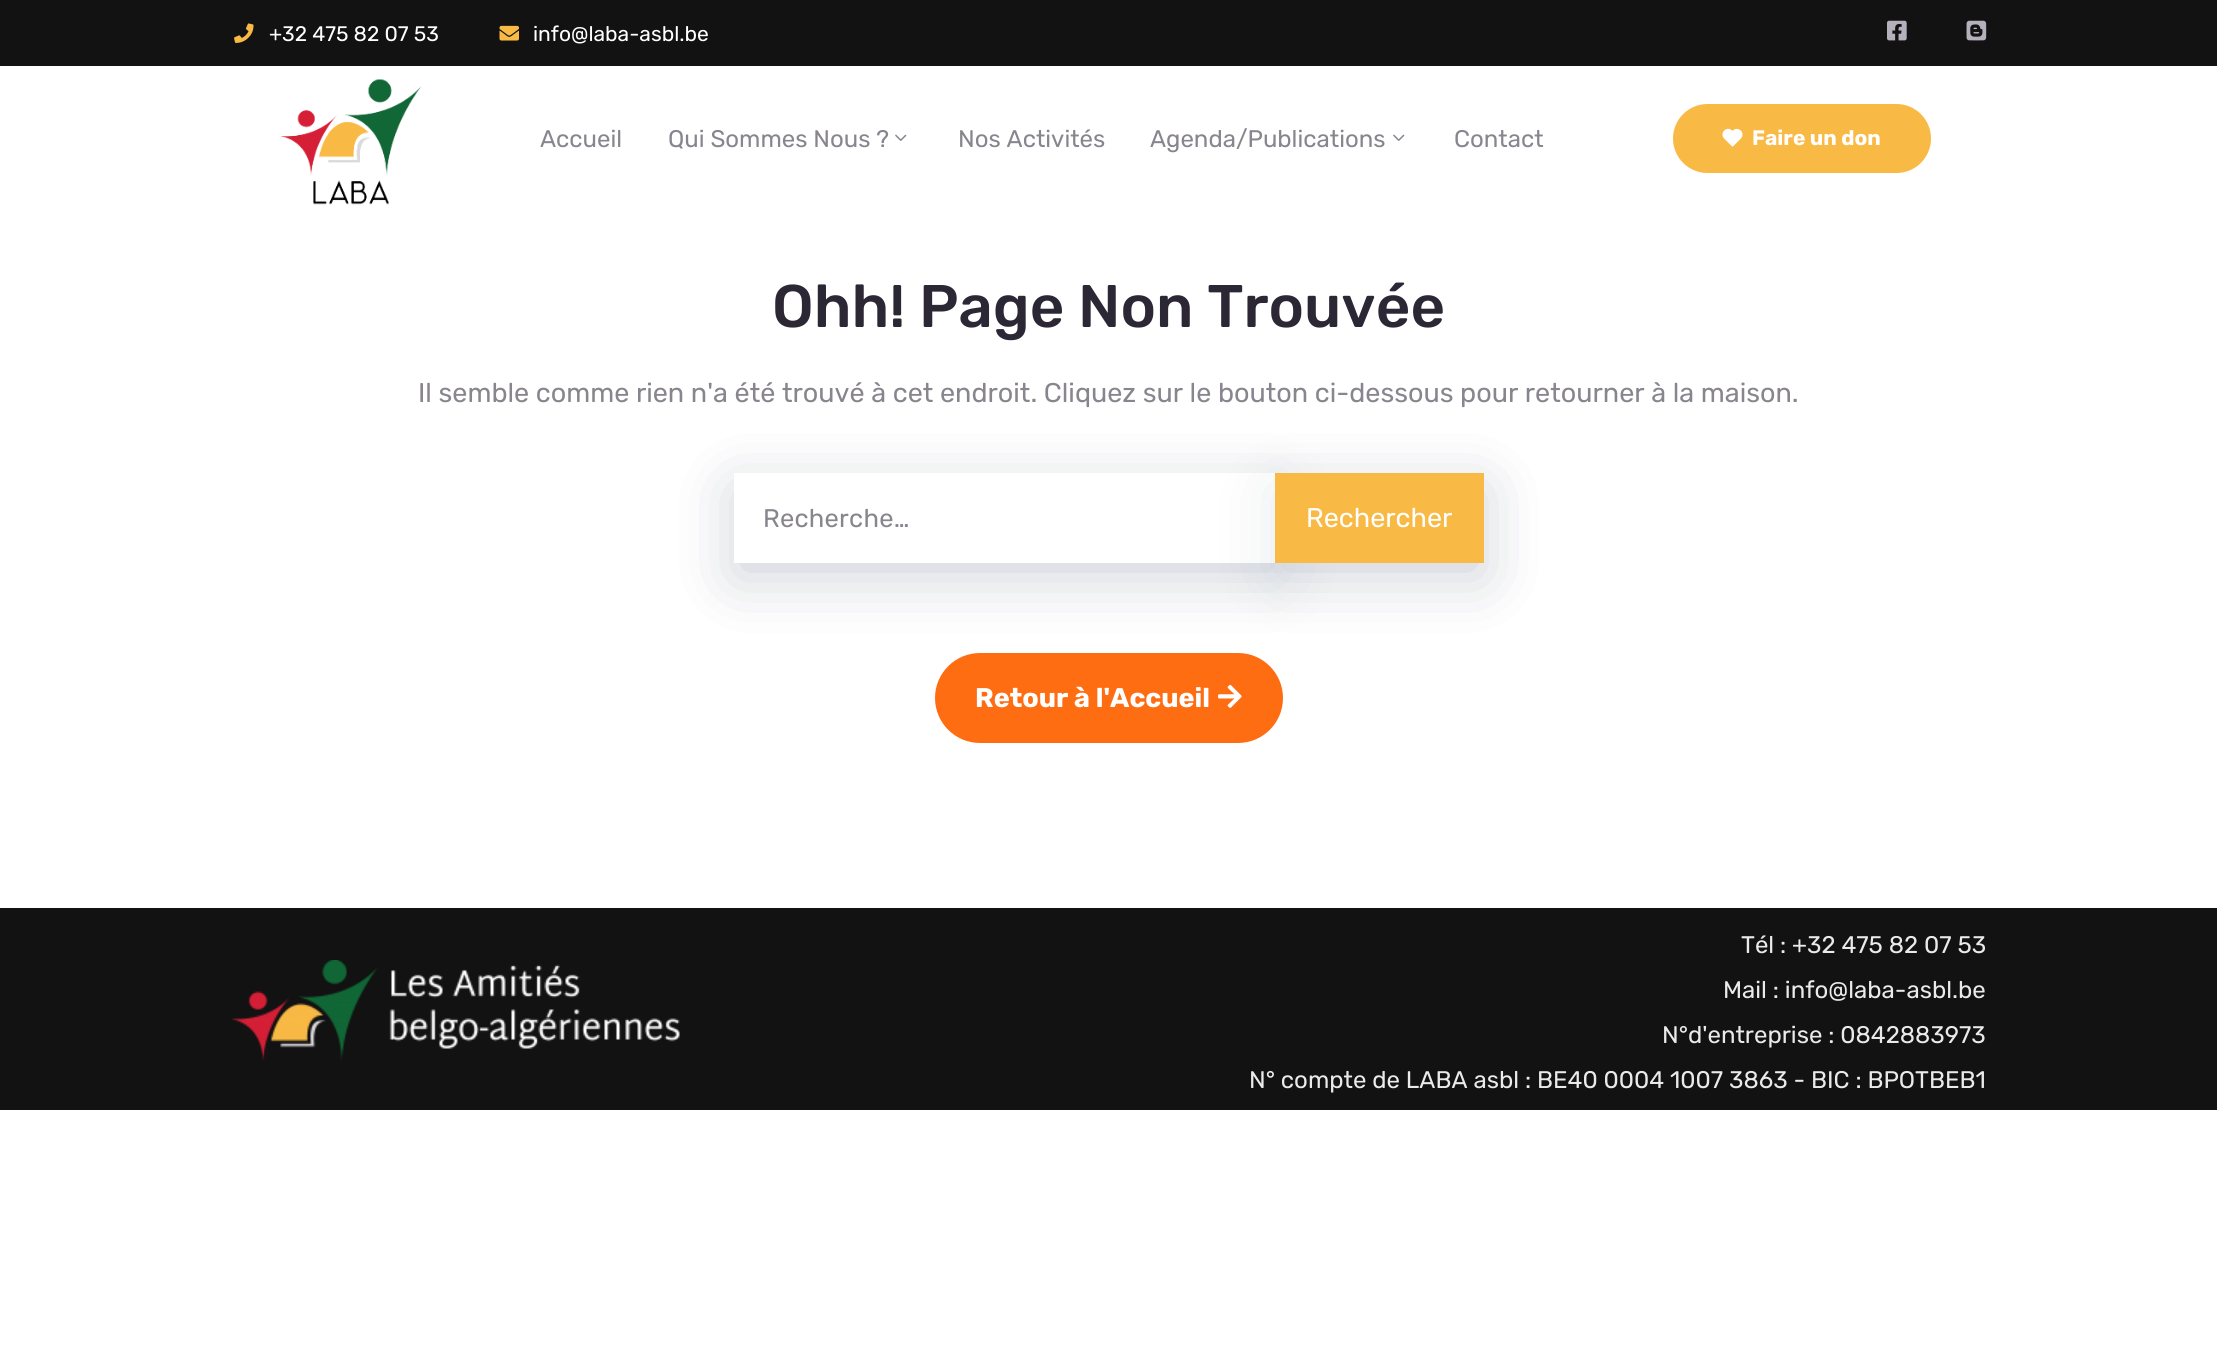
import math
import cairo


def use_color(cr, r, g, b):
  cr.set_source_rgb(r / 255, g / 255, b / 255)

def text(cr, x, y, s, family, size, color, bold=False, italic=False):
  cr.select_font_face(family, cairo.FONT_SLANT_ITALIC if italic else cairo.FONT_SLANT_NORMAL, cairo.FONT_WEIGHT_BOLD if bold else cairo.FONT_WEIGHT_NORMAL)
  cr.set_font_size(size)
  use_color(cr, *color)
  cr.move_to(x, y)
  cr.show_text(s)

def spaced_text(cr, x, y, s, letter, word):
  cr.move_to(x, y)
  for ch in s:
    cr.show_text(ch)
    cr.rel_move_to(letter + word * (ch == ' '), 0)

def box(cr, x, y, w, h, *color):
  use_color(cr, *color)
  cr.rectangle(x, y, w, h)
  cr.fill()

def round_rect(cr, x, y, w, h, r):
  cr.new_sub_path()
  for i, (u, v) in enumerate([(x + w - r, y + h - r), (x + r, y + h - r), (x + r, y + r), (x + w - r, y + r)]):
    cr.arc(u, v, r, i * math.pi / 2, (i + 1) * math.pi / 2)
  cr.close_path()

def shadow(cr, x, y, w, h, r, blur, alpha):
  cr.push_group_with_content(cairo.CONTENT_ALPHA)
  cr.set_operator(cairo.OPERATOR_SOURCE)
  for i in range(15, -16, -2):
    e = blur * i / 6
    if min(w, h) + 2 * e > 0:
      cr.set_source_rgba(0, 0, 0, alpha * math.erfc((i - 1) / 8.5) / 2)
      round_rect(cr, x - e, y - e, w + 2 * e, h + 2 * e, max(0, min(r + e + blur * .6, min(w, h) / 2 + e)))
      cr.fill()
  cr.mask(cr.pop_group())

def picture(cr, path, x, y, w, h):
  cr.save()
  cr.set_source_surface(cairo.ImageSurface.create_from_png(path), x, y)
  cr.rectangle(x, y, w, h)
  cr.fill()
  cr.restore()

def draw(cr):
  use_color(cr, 255, 255, 255)
  cr.paint()
  box(cr, 0, 0, 2217, 66, 18, 18, 18)
  picture(cr, "img_01.png", 234, 23, 20, 20)
  picture(cr, "img_02.png", 499, 25, 20, 16)
  picture(cr, "img_03.png", 1887, 20, 20, 21)
  picture(cr, "img_04.png", 1966, 20, 21, 21)
  picture(cr, "img_05.png", 280, 79, 142, 126)
  picture(cr, "img_06.png", 895, 134, 12, 7)
  picture(cr, "img_06.png", 1393, 134, 12, 7)
  use_color(cr, 249, 185, 69)
  round_rect(cr, 1673, 104, 258, 69, 34.5)
  cr.fill()
  picture(cr, "img_07.png", 1722, 128, 21, 19)
  use_color(cr, 6, 22, 58)
  shadow(cr, 734, 488, 750, 90, 0, 30, 0.1)
  shadow(cr, 734, 488, 547, 90, 0, 30, 0.1)
  box(cr, 734, 473, 541, 90, 255, 255, 255)
  use_color(cr, 255, 109, 18)
  round_rect(cr, 935, 653, 348, 90, 45)
  cr.fill()
  use_color(cr, 6, 22, 58)
  shadow(cr, 1275, 488, 209, 90, 0, 30, 0.1)
  box(cr, 1275, 473, 209, 90, 249, 185, 69)
  picture(cr, "img_08.png", 1218, 684, 24, 24)
  box(cr, 0, 908, 2217, 202, 18, 18, 18)
  picture(cr, "img_09.png", 231, 960, 449, 101)
  text(cr, 269, 41, "+32 475 82 07 53", "Rubik", 21, (255, 255, 255))
  text(cr, 533, 41, "info@laba-asbl.be", "Rubik", 21, (255, 255, 255))
  text(cr, 540, 147, "Accueil", "Rubik", 24, (136, 133, 142))
  text(cr, 668, 147, "Qui Sommes Nous ?", "Rubik", 24, (136, 133, 142))
  text(cr, 958, 147, "Nos Activités", "Rubik", 24, (136, 133, 142))
  text(cr, 1150, 147, "Agenda/Publications", "Rubik", 24, (136, 133, 142))
  text(cr, 1454, 147, "Contact", "Rubik", 24, (136, 133, 142))
  text(cr, 1752, 145, "Faire un don", "Rubik", 21, (255, 255, 255), bold=True)
  text(cr, 772, 327, "Ohh! Page Non Trouvée", "Rubik Medium", 60, (44, 39, 52))
  text(cr, 418, 402, "Il semble comme rien n'a été trouvé à cet endroit. Cliquez sur le bouton ci-dessous pour retourner à la maison.", "Rubik", 27, (136, 133, 142))
  cr.set_font_size(25.5)
  spaced_text(cr, 763, 527, "Recherche…", 0.25, 0)
  text(cr, 1306, 527, "Rechercher", "Rubik", 27, (255, 255, 255))
  text(cr, 975, 707, "Retour à l'Accueil", "Rubik", 27, (255, 255, 255), bold=True)
  text(cr, 1741, 953, "Tél : +32 475 82 07 53", "Rubik", 24, (234, 234, 234))
  text(cr, 1723, 998, "Mail : info@laba-asbl.be", "Rubik", 24, (234, 234, 234))
  text(cr, 1662, 1043, "N°d'entreprise : 0842883973", "Rubik", 24, (234, 234, 234))
  text(cr, 1249, 1088, "N° compte de LABA asbl : BE40 0004 1007 3863 - BIC : BPOTBEB1", "Rubik", 24, (234, 234, 234))


surface = cairo.ImageSurface(cairo.FORMAT_RGB24, 2217, 1361)
cr = cairo.Context(surface)
options = cairo.FontOptions()
options.set_hint_metrics(cairo.HINT_METRICS_OFF)
options.set_hint_style(cairo.HINT_STYLE_NONE)
cr.set_font_options(options)
cr.set_miter_limit(4)
draw(cr)
surface.write_to_png("out.png")
